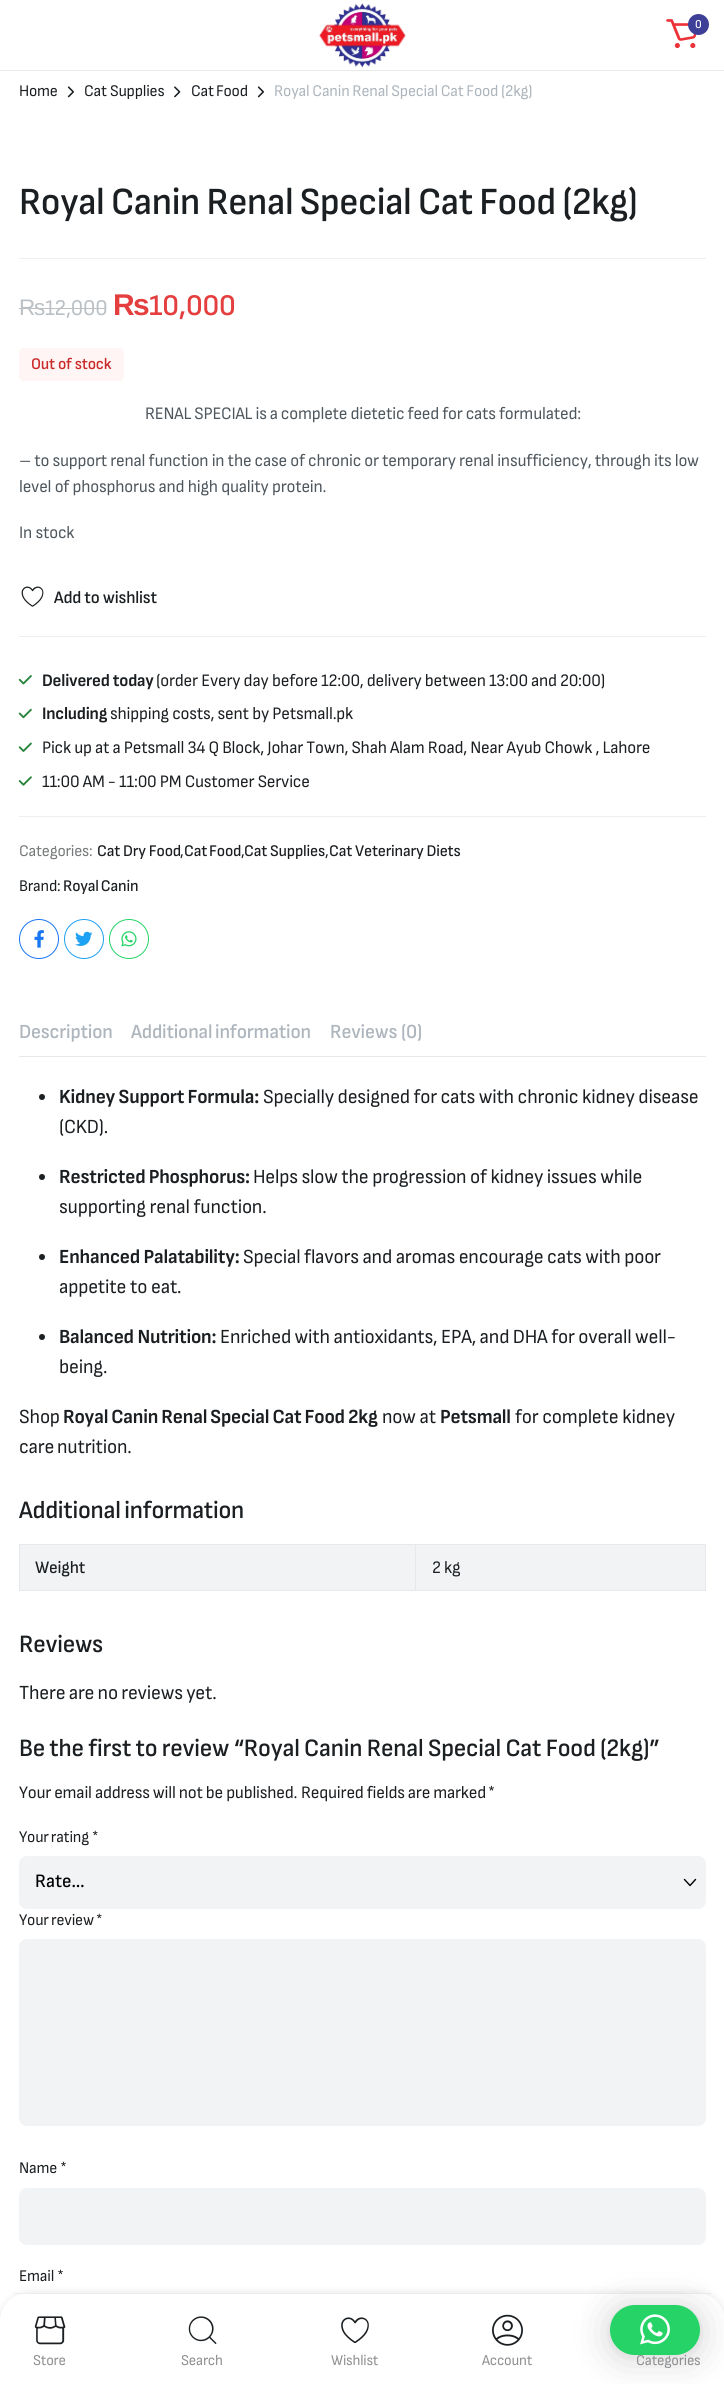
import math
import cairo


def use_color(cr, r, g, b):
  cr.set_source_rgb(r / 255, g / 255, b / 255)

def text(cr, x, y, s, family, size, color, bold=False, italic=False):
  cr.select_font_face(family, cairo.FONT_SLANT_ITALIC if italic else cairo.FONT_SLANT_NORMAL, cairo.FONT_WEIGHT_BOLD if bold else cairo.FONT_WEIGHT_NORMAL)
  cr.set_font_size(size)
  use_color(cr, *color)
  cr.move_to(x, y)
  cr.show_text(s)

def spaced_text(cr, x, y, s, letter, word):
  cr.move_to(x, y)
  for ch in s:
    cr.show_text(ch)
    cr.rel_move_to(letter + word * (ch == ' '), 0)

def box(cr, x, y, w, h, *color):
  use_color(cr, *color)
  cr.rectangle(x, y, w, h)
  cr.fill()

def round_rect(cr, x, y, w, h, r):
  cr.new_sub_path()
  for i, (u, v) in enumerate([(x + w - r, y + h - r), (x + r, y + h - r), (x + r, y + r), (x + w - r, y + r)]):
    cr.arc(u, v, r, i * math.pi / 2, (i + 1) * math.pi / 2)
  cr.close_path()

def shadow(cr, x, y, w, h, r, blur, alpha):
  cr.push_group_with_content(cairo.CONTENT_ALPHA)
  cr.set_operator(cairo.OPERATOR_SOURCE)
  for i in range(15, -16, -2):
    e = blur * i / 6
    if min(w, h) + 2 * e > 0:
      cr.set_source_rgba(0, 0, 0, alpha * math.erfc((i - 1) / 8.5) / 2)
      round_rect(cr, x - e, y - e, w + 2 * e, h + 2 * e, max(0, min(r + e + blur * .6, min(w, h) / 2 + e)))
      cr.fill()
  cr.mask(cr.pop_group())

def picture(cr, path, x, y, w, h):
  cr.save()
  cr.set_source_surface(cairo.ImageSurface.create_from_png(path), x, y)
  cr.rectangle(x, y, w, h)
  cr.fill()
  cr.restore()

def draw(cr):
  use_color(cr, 255, 255, 255)
  cr.paint()
  box(cr, 0, 70, 724, 1, 232, 233, 233)
  picture(cr, "img_01.png", 319, 3, 87, 65)
  picture(cr, "img_02.png", 666, 19, 31, 30)
  use_color(cr, 62, 63, 150)
  cr.arc(698.5, 24.5, 10.5, 0, 2 * math.pi)
  cr.fill()
  picture(cr, "img_03.png", 67, 86, 7, 12)
  picture(cr, "img_04.png", 174, 86, 7, 12)
  picture(cr, "img_03.png", 257, 86, 7, 12)
  box(cr, 19, 258, 687, 1, 236, 238, 240)
  box(cr, 19, 308, 26, 1, 187, 192, 196)
  box(cr, 45, 308, 61, 1, 187, 192, 196)
  use_color(cr, 255, 245, 245)
  round_rect(cr, 19, 348, 105, 33, 4)
  cr.fill()
  picture(cr, "img_05.png", 21, 586, 23, 21)
  box(cr, 19, 636, 687, 1, 236, 238, 240)
  picture(cr, "img_06.png", 18, 675, 14, 10)
  picture(cr, "img_07.png", 18, 708, 14, 11)
  picture(cr, "img_08.png", 18, 742, 14, 10)
  picture(cr, "img_09.png", 18, 776, 14, 10)
  box(cr, 19, 816, 687, 1, 236, 238, 240)
  cr.arc(39, 939, 19.5, 0, 2 * math.pi)
  use_color(cr, 24, 119, 242)
  cr.set_line_width(1)
  cr.stroke()
  picture(cr, "img_10.png", 34, 930, 10, 18)
  cr.arc(84, 939, 19.5, 0, 2 * math.pi)
  use_color(cr, 29, 161, 242)
  cr.stroke()
  picture(cr, "img_11.png", 75, 931, 18, 15)
  cr.arc(129, 939, 19.5, 0, 2 * math.pi)
  use_color(cr, 37, 211, 102)
  cr.stroke()
  picture(cr, "img_12.png", 121, 931, 16, 16)
  box(cr, 19, 1056, 687, 1, 230, 232, 235)
  use_color(cr, 27, 31, 34)
  cr.arc(42, 1097, 3, 0, 2 * math.pi)
  cr.fill()
  cr.arc(42, 1177, 3, 0, 2 * math.pi)
  cr.fill()
  cr.arc(42, 1257, 3, 0, 2 * math.pi)
  cr.fill()
  cr.arc(42, 1337, 3, 0, 2 * math.pi)
  cr.fill()
  box(cr, 20, 1545, 685, 45, 241, 243, 245)
  box(cr, 415, 1544, 291, 1, 230, 232, 235)
  box(cr, 705, 1544, 1, 47, 230, 232, 235)
  box(cr, 415, 1590, 291, 1, 230, 232, 235)
  box(cr, 415, 1544, 1, 47, 230, 232, 235)
  box(cr, 19, 1544, 397, 1, 230, 232, 235)
  box(cr, 19, 1590, 397, 1, 230, 232, 235)
  box(cr, 19, 1544, 1, 47, 230, 232, 235)
  use_color(cr, 241, 243, 245)
  round_rect(cr, 19, 1856, 687, 53, 8)
  cr.fill()
  cr.new_path()
  cr.move_to(684.5, 1879.5)
  cr.line_to(690, 1885.5)
  cr.line_to(695.5, 1879.5)
  use_color(cr, 0, 0, 0)
  cr.set_line_width(1.4)
  cr.set_line_cap(cairo.LINE_CAP_ROUND)
  cr.set_line_join(cairo.LINE_JOIN_ROUND)
  cr.stroke()
  use_color(cr, 241, 243, 245)
  round_rect(cr, 19, 1939, 687, 187, 8)
  cr.fill()
  round_rect(cr, 19, 2188, 687, 57, 8)
  cr.fill()
  use_color(cr, 27, 31, 34)
  shadow(cr, 5, 2298, 715, 82, 23, 6, 0.3)
  use_color(cr, 255, 255, 255)
  cr.new_path()
  cr.move_to(28, 2293)
  cr.line_to(697, 2293)
  cr.curve_to(712.5, 2293, 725, 2305.5, 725, 2321)
  cr.line_to(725, 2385)
  cr.line_to(0, 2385)
  cr.line_to(0, 2321)
  cr.curve_to(0, 2305.5, 12.5, 2293, 28, 2293)
  cr.close_path()
  cr.fill()
  box(cr, 14, 2293, 697, 1, 236, 238, 240)
  use_color(cr, 0, 0, 0)
  shadow(cr, 610, 2308, 90, 50, 25, 20, 0.16)
  shadow(cr, 610, 2306, 90, 50, 25, 4, 0.06)
  picture(cr, "img_14.png", 34, 2316, 32, 29)
  picture(cr, "img_15.png", 188, 2316, 29, 28)
  picture(cr, "img_16.png", 341, 2317, 28, 27)
  picture(cr, "img_17.png", 492, 2314, 31, 32)
  cr.select_font_face("Sofia Sans Semi Condensed Medium")
  cr.set_font_size(12)
  use_color(cr, 255, 255, 255)
  spaced_text(cr, 695, 28, "0", -0.2, 0)
  cr.select_font_face("Sofia Sans Semi Condensed")
  cr.set_font_size(16.25)
  use_color(cr, 27, 31, 34)
  spaced_text(cr, 19, 96, "Home", -0.2, 0)
  spaced_text(cr, 84, 96, "Cat Supplies", -0.2, 0)
  spaced_text(cr, 191, 96, "Cat Food", -0.2, -1)
  use_color(cr, 173, 181, 189)
  spaced_text(cr, 274, 96, "Royal Canin Renal Special Cat Food (2kg)", -0.2, -0.25)
  cr.select_font_face("Sofia Sans Semi Condensed SemiBold")
  cr.set_font_size(38.4)
  use_color(cr, 27, 31, 34)
  spaced_text(cr, 19, 214, "Royal Canin Renal Special Cat Food (2kg)", -0.4, -0.75)
  cr.select_font_face("Liberation Sans")
  cr.set_font_size(22.5)
  use_color(cr, 187, 192, 196)
  spaced_text(cr, 19, 315, "₨", -0.2, 0)
  cr.select_font_face("Sofia Sans Semi Condensed")
  spaced_text(cr, 45, 315, "12,000", -0.2, 0)
  cr.select_font_face("Liberation Sans", cairo.FONT_SLANT_NORMAL, cairo.FONT_WEIGHT_BOLD)
  cr.set_font_size(30)
  use_color(cr, 229, 62, 62)
  spaced_text(cr, 113, 315, "₨", -0.2, 0)
  cr.select_font_face("Sofia Sans Semi Condensed SemiBold")
  spaced_text(cr, 149, 315, "10,000", -0.2, 0)
  cr.set_font_size(16.25)
  use_color(cr, 201, 42, 42)
  spaced_text(cr, 31, 369, "Out of stock", -0.2, 0)
  cr.select_font_face("Sofia Sans Semi Condensed")
  cr.set_font_size(17.5)
  use_color(cr, 79, 87, 94)
  spaced_text(cr, 145, 419, "RENAL SPECIAL is a complete dietetic feed for cats formulated:", -0.2, -0.25)
  spaced_text(cr, 19, 466, "– to support renal function in the case of chronic or temporary renal insufficiency, through its low", -0.2, -0.1)
  spaced_text(cr, 19, 492, "level of phosphorus and high quality protein.", -0.2, 0)
  spaced_text(cr, 19, 538, "In stock", -0.2, 0)
  cr.select_font_face("Sofia Sans Semi Condensed SemiBold")
  use_color(cr, 27, 31, 34)
  spaced_text(cr, 54, 603, "Add to wishlist", -0.2, 0)
  cr.select_font_face("Sofia Sans Semi Condensed", cairo.FONT_SLANT_NORMAL, cairo.FONT_WEIGHT_BOLD)
  spaced_text(cr, 42, 686, "Delivered today", -0.2, 0)
  cr.select_font_face("Sofia Sans Semi Condensed")
  spaced_text(cr, 156, 686, "(order Every day", -0.2, 0)
  spaced_text(cr, 272, 686, "before 12:00, delivery between 13:00 and 20:00)", -0.2, -0.25)
  cr.select_font_face("Sofia Sans Semi Condensed", cairo.FONT_SLANT_NORMAL, cairo.FONT_WEIGHT_BOLD)
  spaced_text(cr, 42, 719, "Including", -0.2, 0)
  cr.select_font_face("Sofia Sans Semi Condensed")
  spaced_text(cr, 110, 719, "shipping costs, sent by Petsmall.pk", -0.2, 0)
  spaced_text(cr, 42, 753, "Pick up at a Petsmall 34 Q Block, Johar Town, Shah Alam Road, Near Ayub Chowk , Lahore", -0.2, -0.1)
  spaced_text(cr, 42, 787, "11:00 AM - 11:00 PM Customer Service", -0.2, 0)
  cr.set_font_size(16.25)
  use_color(cr, 118, 121, 122)
  spaced_text(cr, 19, 856, "Categories:", -0.2, 0)
  cr.select_font_face("Sofia Sans Semi Condensed Medium")
  use_color(cr, 27, 31, 34)
  spaced_text(cr, 97, 856, "Cat Dry Food", -0.2, 0)
  cr.select_font_face("Sofia Sans Semi Condensed")
  spaced_text(cr, 180, 856, ",", -0.2, 0)
  cr.select_font_face("Sofia Sans Semi Condensed Medium")
  spaced_text(cr, 184, 856, "Cat Food", -0.2, -1)
  cr.select_font_face("Sofia Sans Semi Condensed")
  spaced_text(cr, 241, 856, ",", -0.2, 0)
  cr.select_font_face("Sofia Sans Semi Condensed Medium")
  spaced_text(cr, 244, 856, "Cat Supplies", -0.2, 0)
  cr.select_font_face("Sofia Sans Semi Condensed")
  spaced_text(cr, 325, 856, ",", -0.2, 0)
  cr.select_font_face("Sofia Sans Semi Condensed Medium")
  spaced_text(cr, 329, 856, "Cat Veterinary Diets", -0.2, 0)
  cr.select_font_face("Sofia Sans Semi Condensed")
  spaced_text(cr, 19, 891, "Brand:", -0.2, 0)
  cr.select_font_face("Sofia Sans Semi Condensed Medium")
  spaced_text(cr, 63, 891, "Royal Canin", -0.2, -1)
  cr.select_font_face("Sofia Sans Semi Condensed SemiBold")
  cr.set_font_size(20)
  use_color(cr, 173, 181, 189)
  spaced_text(cr, 19, 1038, "Description", -0.2, 0)
  spaced_text(cr, 131, 1038, "Additional information", -0.2, -1)
  spaced_text(cr, 330, 1038, "Reviews (0)", -0.2, 0)
  cr.select_font_face("Sofia Sans Semi Condensed", cairo.FONT_SLANT_NORMAL, cairo.FONT_WEIGHT_BOLD)
  use_color(cr, 27, 31, 34)
  spaced_text(cr, 59, 1103, "Kidney Support Formula:", -0.2, -0.25)
  cr.select_font_face("Sofia Sans Semi Condensed")
  spaced_text(cr, 263, 1103, "Specially designed for cats with chronic kidney disease", -0.2, -0.25)
  spaced_text(cr, 59, 1133, "(CKD).", -0.2, 0)
  cr.select_font_face("Sofia Sans Semi Condensed", cairo.FONT_SLANT_NORMAL, cairo.FONT_WEIGHT_BOLD)
  spaced_text(cr, 59, 1183, "Restricted Phosphorus:", -0.2, -0.4)
  cr.select_font_face("Sofia Sans Semi Condensed")
  spaced_text(cr, 253, 1183, "Helps slow the progression of kidney issues while", -0.2, -0.25)
  spaced_text(cr, 59, 1213, "supporting renal function.", -0.2, 0)
  cr.select_font_face("Sofia Sans Semi Condensed", cairo.FONT_SLANT_NORMAL, cairo.FONT_WEIGHT_BOLD)
  spaced_text(cr, 59, 1263, "Enhanced Palatability:", -0.2, 0)
  cr.select_font_face("Sofia Sans Semi Condensed")
  spaced_text(cr, 243, 1263, "Special flavors and aromas encourage cats with poor", -0.2, -0.25)
  spaced_text(cr, 59, 1293, "appetite to eat.", -0.2, 0)
  cr.select_font_face("Sofia Sans Semi Condensed", cairo.FONT_SLANT_NORMAL, cairo.FONT_WEIGHT_BOLD)
  spaced_text(cr, 59, 1343, "Balanced Nutrition:", -0.2, 0)
  cr.select_font_face("Sofia Sans Semi Condensed")
  spaced_text(cr, 220, 1343, "Enriched with antioxidants, EPA, and DHA for overall well-", -0.2, -0.25)
  spaced_text(cr, 59, 1373, "being.", -0.2, 0)
  spaced_text(cr, 19, 1423, "Shop", -0.2, 0)
  cr.select_font_face("Sofia Sans Semi Condensed", cairo.FONT_SLANT_NORMAL, cairo.FONT_WEIGHT_BOLD)
  spaced_text(cr, 63, 1423, "Royal Canin Renal Special Cat Food 2kg", -0.2, -0.5)
  cr.select_font_face("Sofia Sans Semi Condensed")
  spaced_text(cr, 382, 1423, "now at", -0.2, 0)
  cr.select_font_face("Sofia Sans Semi Condensed", cairo.FONT_SLANT_NORMAL, cairo.FONT_WEIGHT_BOLD)
  spaced_text(cr, 440, 1423, "Petsmall", -0.2, 0)
  cr.select_font_face("Sofia Sans Semi Condensed")
  spaced_text(cr, 515, 1423, "for complete kidney", -0.2, 0)
  spaced_text(cr, 19, 1453, "care nutrition.", -0.2, -1)
  cr.select_font_face("Sofia Sans Semi Condensed SemiBold")
  cr.set_font_size(25)
  spaced_text(cr, 19, 1518, "Additional information", -0.25, -1)
  cr.select_font_face("Sofia Sans Semi Condensed Medium")
  cr.set_font_size(17.5)
  spaced_text(cr, 35, 1573, "Weight", -0.2, 0)
  cr.select_font_face("Sofia Sans Semi Condensed")
  spaced_text(cr, 432, 1573, "2 kg", -0.2, 0)
  cr.select_font_face("Sofia Sans Semi Condensed SemiBold")
  cr.set_font_size(25)
  spaced_text(cr, 19, 1652, "Reviews", -0.25, 0)
  cr.select_font_face("Sofia Sans Semi Condensed")
  cr.set_font_size(20)
  spaced_text(cr, 19, 1699, "There are no reviews yet.", -0.2, -0.5)
  cr.select_font_face("Sofia Sans Semi Condensed SemiBold")
  cr.set_font_size(25)
  spaced_text(cr, 19, 1756, "Be the first to review “Royal Canin Renal Special Cat Food (2kg)”", -0.2, -0.4)
  cr.select_font_face("Sofia Sans Semi Condensed")
  cr.set_font_size(17.5)
  spaced_text(cr, 19, 1798, "Your email address will not be published.", -0.2, -0.25)
  spaced_text(cr, 301, 1798, "Required fields are marked", -0.2, -0.25)
  spaced_text(cr, 488, 1798, "*", -0.2, 0)
  cr.set_font_size(16.25)
  spaced_text(cr, 19, 1842, "Your rating", -0.2, -1)
  spaced_text(cr, 92, 1842, "*", -0.2, 0)
  text(cr, 35, 1887, "Rate…", "Sofia Sans Semi Condensed Medium", 19, (0, 0, 0))
  cr.select_font_face("Sofia Sans Semi Condensed")
  cr.set_font_size(16.25)
  use_color(cr, 27, 31, 34)
  spaced_text(cr, 19, 1925, "Your review", -0.2, -0.75)
  spaced_text(cr, 96, 1925, "*", -0.2, 0)
  spaced_text(cr, 19, 2173, "Name *", -0.2, 0)
  spaced_text(cr, 19, 2281, "Email *", -0.2, 0)
  cr.set_font_size(15)
  use_color(cr, 141, 143, 145)
  spaced_text(cr, 33, 2365, "Store", -0.2, 0)
  spaced_text(cr, 181, 2365, "Search", -0.2, 0)
  spaced_text(cr, 331, 2365, "Wishlist", -0.2, 0)
  spaced_text(cr, 482, 2365, "Account", -0.2, 0)
  spaced_text(cr, 636, 2365, "Categories", -0.2, 0)
  use_color(cr, 37, 211, 102)
  round_rect(cr, 610, 2305, 90, 50, 25)
  cr.fill()
  picture(cr, "img_13.png", 640, 2314, 30, 31)


surface = cairo.ImageSurface(cairo.FORMAT_RGB24, 724, 2384)
cr = cairo.Context(surface)
options = cairo.FontOptions()
options.set_hint_metrics(cairo.HINT_METRICS_OFF)
options.set_hint_style(cairo.HINT_STYLE_NONE)
cr.set_font_options(options)
cr.set_miter_limit(4)
draw(cr)
surface.write_to_png("out.png")
